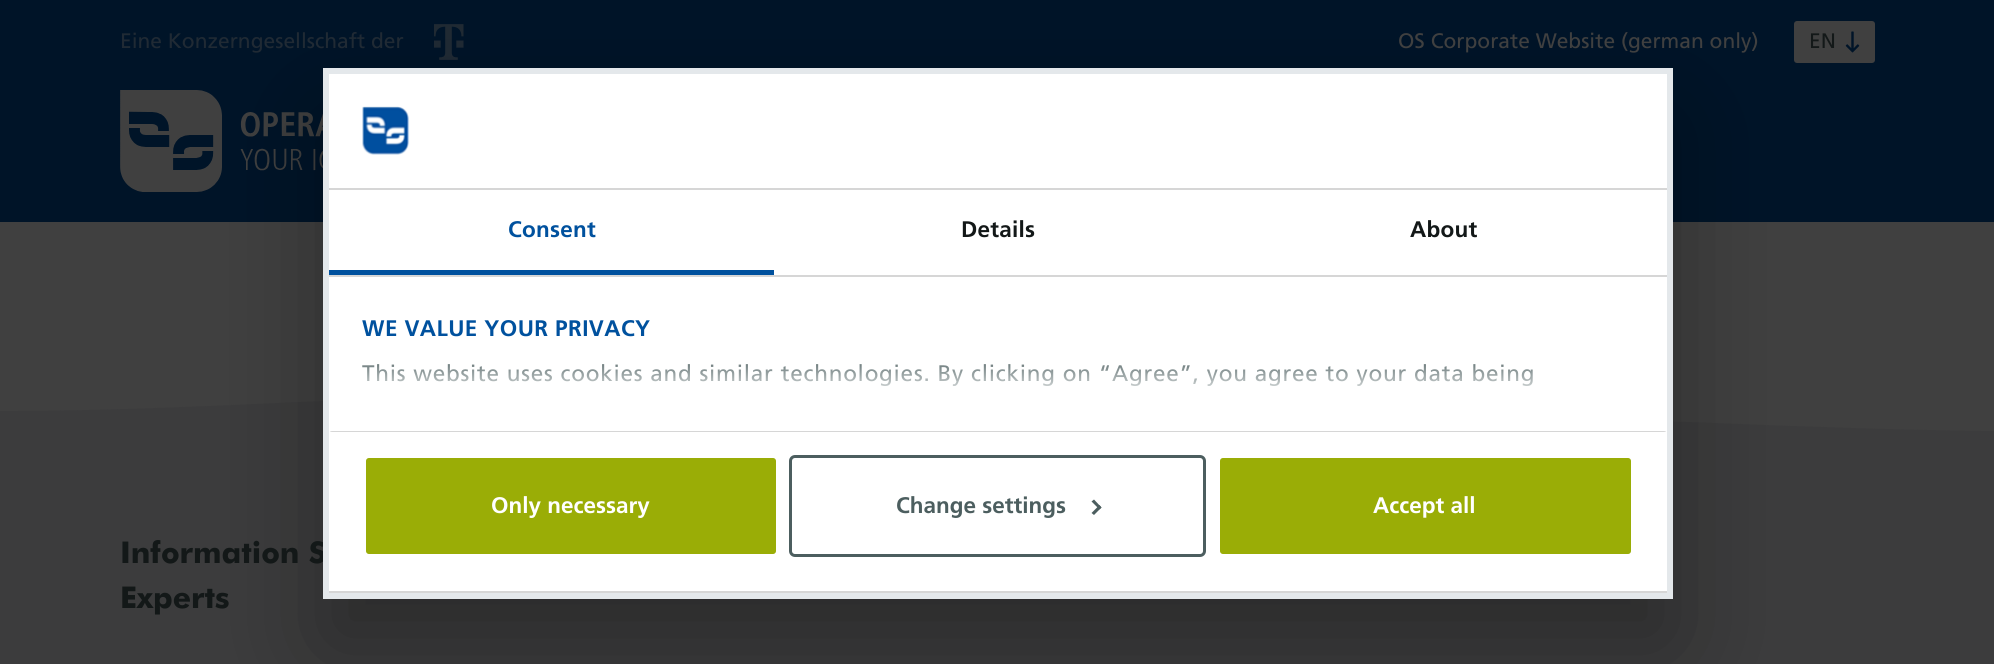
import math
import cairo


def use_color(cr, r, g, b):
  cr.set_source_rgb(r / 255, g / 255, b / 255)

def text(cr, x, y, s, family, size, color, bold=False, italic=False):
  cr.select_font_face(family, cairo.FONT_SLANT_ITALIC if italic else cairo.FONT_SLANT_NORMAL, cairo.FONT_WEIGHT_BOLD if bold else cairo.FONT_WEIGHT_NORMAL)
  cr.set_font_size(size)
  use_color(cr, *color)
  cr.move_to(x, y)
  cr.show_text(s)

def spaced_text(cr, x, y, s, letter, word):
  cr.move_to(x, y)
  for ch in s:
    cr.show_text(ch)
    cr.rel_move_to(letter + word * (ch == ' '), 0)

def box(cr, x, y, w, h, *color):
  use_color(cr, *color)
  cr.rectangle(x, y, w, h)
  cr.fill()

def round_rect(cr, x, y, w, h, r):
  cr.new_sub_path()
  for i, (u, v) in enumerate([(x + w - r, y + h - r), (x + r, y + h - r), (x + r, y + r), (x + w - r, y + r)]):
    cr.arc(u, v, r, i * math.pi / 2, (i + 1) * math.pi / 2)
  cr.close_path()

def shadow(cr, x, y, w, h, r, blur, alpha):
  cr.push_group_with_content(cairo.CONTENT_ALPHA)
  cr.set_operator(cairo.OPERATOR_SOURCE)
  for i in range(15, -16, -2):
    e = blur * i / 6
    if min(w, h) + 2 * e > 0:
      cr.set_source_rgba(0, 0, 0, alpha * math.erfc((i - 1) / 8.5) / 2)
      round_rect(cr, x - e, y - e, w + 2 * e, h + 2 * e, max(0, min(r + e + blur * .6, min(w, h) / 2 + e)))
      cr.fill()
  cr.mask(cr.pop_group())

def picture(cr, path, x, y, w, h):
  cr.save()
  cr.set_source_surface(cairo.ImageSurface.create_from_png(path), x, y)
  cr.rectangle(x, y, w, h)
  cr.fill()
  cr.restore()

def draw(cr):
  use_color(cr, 64, 64, 64)
  cr.paint()
  box(cr, 0, 0, 1994, 222, 0, 20, 40)
  picture(cr, "img_01.png", 434, 24, 30, 36)
  picture(cr, "img_02.png", 120, 90, 203, 102)
  use_color(cr, 64, 64, 64)
  round_rect(cr, 1794, 21, 81, 42, 3)
  cr.fill()
  picture(cr, "img_03.png", 1845, 31, 15, 22)
  box(cr, 0, 400, 1994, 264, 60, 60, 61)
  use_color(cr, 64, 64, 64)
  cr.new_path()
  cr.move_to(0, 381)
  cr.line_to(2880, 381)
  cr.line_to(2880, 411)
  cr.curve_to(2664, 411, 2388, 432, 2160, 432)
  cr.curve_to(1932, 432, 1832, 429, 1440, 411)
  cr.curve_to(1048, 393, 1015, 390, 720, 390)
  cr.curve_to(425, 390, 218, 411, 0, 411)
  cr.close_path()
  cr.fill()
  use_color(cr, 0, 0, 0)
  shadow(cr, 323, 116, 1350, 531, 3, 51, 0.3)
  text(cr, 120, 48, "Eine Konzerngesellschaft der", "Frutiger", 21, (32, 42, 52))
  text(cr, 1398, 48, "OS Corporate Website (german only)", "Frutiger", 21, (64, 64, 64))
  text(cr, 1809, 48, "EN", "Frutiger", 21, (19, 24, 24))
  text(cr, 120, 563, "Information S", "Futura", 30, (19, 24, 24), bold=True)
  use_color(cr, 255, 255, 255)
  cr.rectangle(326, 71, 1344, 525)
  cr.fill_preserve()
  use_color(cr, 228, 232, 235)
  cr.set_line_width(6)
  cr.stroke()
  cr.select_font_face("Frutiger")
  cr.set_font_size(22.5)
  use_color(cr, 76, 94, 95)
  spaced_text(cr, 362, 381, "This website uses cookies and similar technologies. By clicking on “Agree”, you agree to your data being", 0.75, 0)
  gradient = cairo.LinearGradient(983, 430, 983, 354)
  gradient.add_color_stop_rgba(0, 1, 1, 1, 1)
  gradient.add_color_stop_rgba(0.5, 1, 1, 1, 0.8)
  gradient.add_color_stop_rgba(1, 1, 1, 1, 0)
  cr.set_source(gradient)
  cr.rectangle(362, 364, 1171, 22)
  cr.fill()
  round_rect(cr, 790.5, 456.5, 414, 99, 4.5)
  use_color(cr, 76, 94, 95)
  cr.set_line_width(3)
  cr.stroke()
  cr.new_path()
  cr.move_to(1094, 499.5)
  cr.line_to(1101.5, 507.5)
  cr.line_to(1099.5, 509.5)
  cr.line_to(1091.5, 501.5)
  cr.close_path()
  cr.fill()
  cr.new_path()
  cr.move_to(1099.5, 505)
  cr.line_to(1101.5, 507.5)
  cr.line_to(1094, 515)
  cr.line_to(1091.5, 513)
  cr.close_path()
  cr.fill()
  use_color(cr, 154, 173, 6)
  round_rect(cr, 1218.5, 456.5, 414, 99, 4.5)
  cr.fill_preserve()
  use_color(cr, 255, 255, 255)
  cr.stroke()
  text(cr, 1373, 513, "Accept all", "Frutiger", 22.5, (255, 255, 255), bold=True)
  text(cr, 896, 513, "Change settings", "Frutiger", 22.5, (76, 94, 95), bold=True)
  use_color(cr, 154, 173, 6)
  round_rect(cr, 364.5, 456.5, 413, 99, 4.5)
  cr.fill_preserve()
  use_color(cr, 255, 255, 255)
  cr.stroke()
  text(cr, 491, 513, "Only necessary", "Frutiger", 22.5, (255, 255, 255), bold=True)
  box(cr, 329, 591, 1338, 2, 214, 214, 214)
  use_color(cr, 0, 81, 158)
  spaced_text(cr, 362, 336, "WE VALUE YOUR PRIVACY", 0.4, 0)
  cr.save()
  round_rect(cr, 329, 276, 1338, 156, 3)
  cr.clip()
  box(cr, 329, 431, 1338, 1, 214, 214, 214)
  cr.restore()
  use_color(cr, 19, 24, 24)
  spaced_text(cr, 1410, 237, "About", 0.25, 0)
  spaced_text(cr, 961, 237, "Details", 0.25, 0)
  use_color(cr, 0, 81, 158)
  spaced_text(cr, 508, 237, "Consent", 0.25, 0)
  box(cr, 329, 270, 445, 5, 0, 81, 158)
  box(cr, 329, 275, 1338, 2, 214, 214, 214)
  picture(cr, "img_04.png", 362, 106, 48, 49)
  box(cr, 329, 188, 1338, 2, 214, 214, 214)
  text(cr, 120, 608, "Experts", "Futura", 30, (19, 24, 24), bold=True)


surface = cairo.ImageSurface(cairo.FORMAT_RGB24, 1994, 664)
cr = cairo.Context(surface)
options = cairo.FontOptions()
options.set_hint_metrics(cairo.HINT_METRICS_OFF)
options.set_hint_style(cairo.HINT_STYLE_NONE)
cr.set_font_options(options)
cr.set_miter_limit(4)
draw(cr)
surface.write_to_png("out.png")
